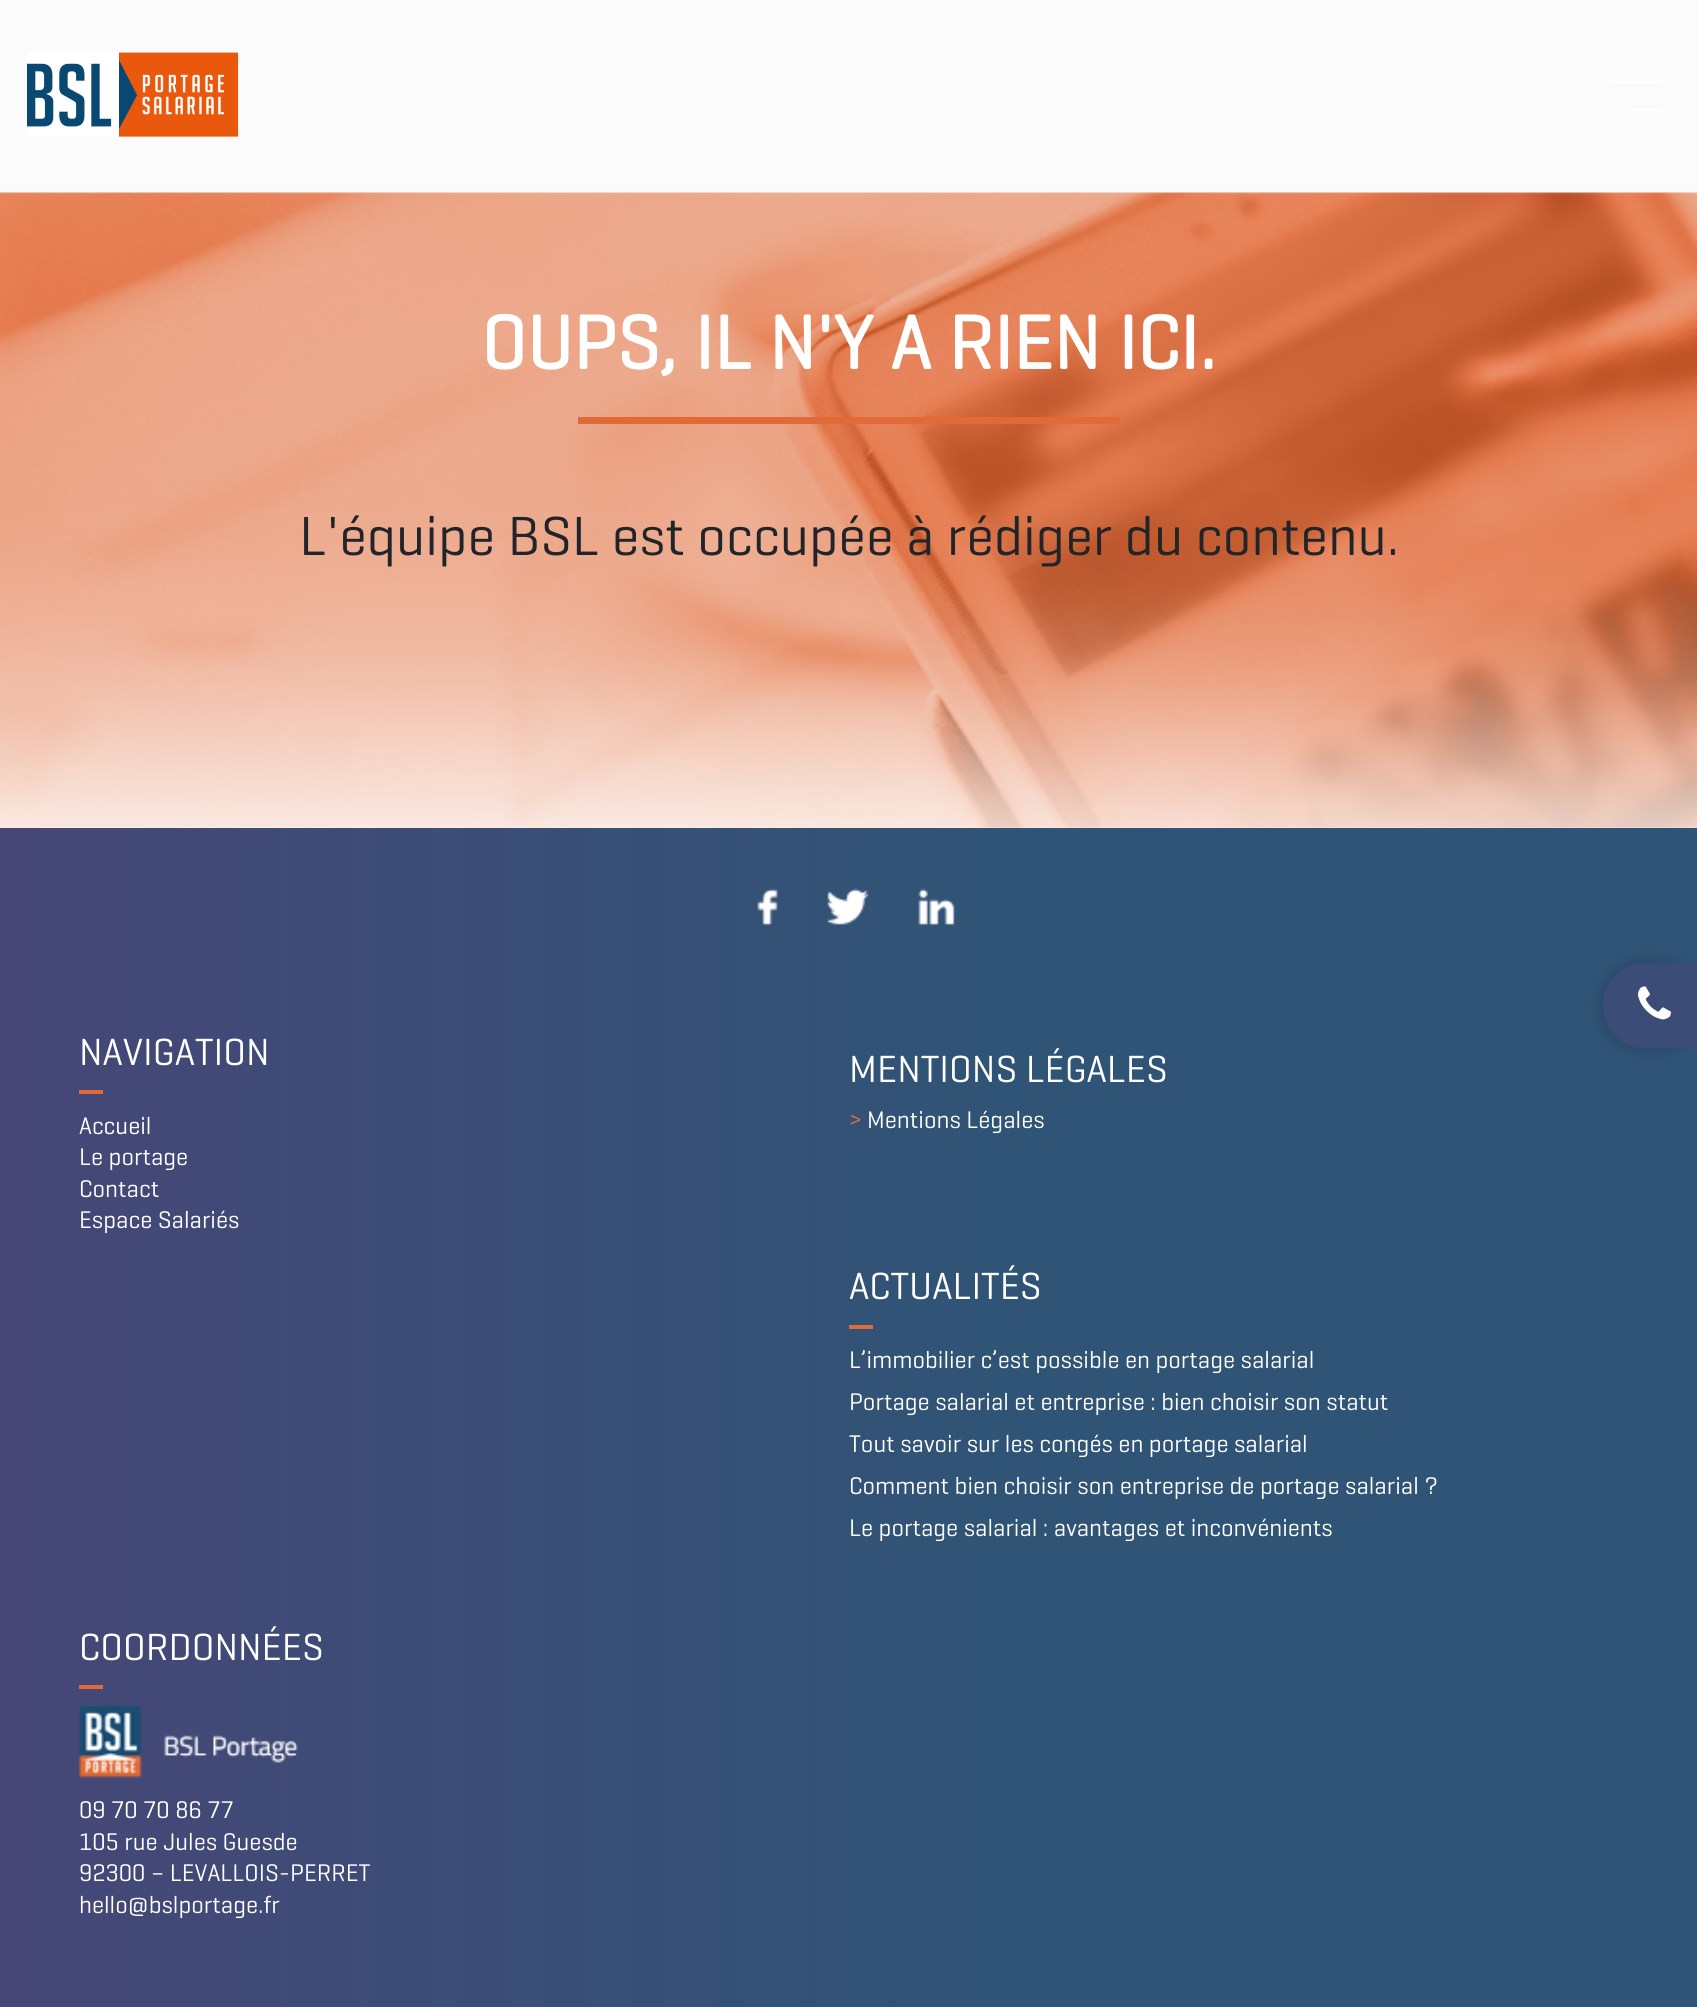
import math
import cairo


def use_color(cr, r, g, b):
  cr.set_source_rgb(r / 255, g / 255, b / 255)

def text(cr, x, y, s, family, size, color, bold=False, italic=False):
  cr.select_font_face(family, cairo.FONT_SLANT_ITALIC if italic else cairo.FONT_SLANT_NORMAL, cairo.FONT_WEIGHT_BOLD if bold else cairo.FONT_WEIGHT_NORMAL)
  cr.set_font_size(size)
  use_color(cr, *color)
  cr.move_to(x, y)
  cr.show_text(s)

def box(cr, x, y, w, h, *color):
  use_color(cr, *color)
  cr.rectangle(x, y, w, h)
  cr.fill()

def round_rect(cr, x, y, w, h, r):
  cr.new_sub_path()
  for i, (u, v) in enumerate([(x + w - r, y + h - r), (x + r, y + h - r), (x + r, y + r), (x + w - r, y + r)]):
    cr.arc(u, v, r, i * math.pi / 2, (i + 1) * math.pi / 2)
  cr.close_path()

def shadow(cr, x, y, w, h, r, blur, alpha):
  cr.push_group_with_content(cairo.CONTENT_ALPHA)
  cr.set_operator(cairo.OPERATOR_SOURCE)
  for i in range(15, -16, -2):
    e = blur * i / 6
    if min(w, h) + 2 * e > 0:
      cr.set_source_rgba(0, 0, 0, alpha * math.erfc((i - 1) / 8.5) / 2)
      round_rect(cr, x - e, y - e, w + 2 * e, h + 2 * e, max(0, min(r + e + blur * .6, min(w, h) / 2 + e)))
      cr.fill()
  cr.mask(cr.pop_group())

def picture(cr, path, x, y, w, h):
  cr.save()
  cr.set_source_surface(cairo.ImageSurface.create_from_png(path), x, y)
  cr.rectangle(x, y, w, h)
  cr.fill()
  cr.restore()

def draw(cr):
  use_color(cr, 255, 255, 255)
  cr.paint()
  box(cr, 0, 0, 1697, 193, 251, 251, 251)
  picture(cr, "img_01.png", 27, 52, 212, 85)
  use_color(cr, 255, 255, 255)
  round_rect(cr, 1593, 95, 70, 2, 1)
  cr.fill()
  round_rect(cr, 1610, 81, 53, 2, 1)
  cr.fill()
  round_rect(cr, 1628, 109, 35, 2, 1)
  cr.fill()
  picture(cr, "img_02.png", 0, 192, 1697, 636)
  box(cr, 578, 417, 542, 7, 224, 106, 56)
  gradient = cairo.LinearGradient(0, 1449, 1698, 1449)
  gradient.add_color_stop_rgba(0, 0.275, 0.278, 0.467, 1)
  gradient.add_color_stop_rgba(0.59, 0.184, 0.329, 0.463, 1)
  cr.set_source(gradient)
  cr.rectangle(0, 828, 1697, 1179)
  cr.fill()
  cr.save()
  cr.set_fill_rule(cairo.FILL_RULE_EVEN_ODD)
  cr.new_path()
  cr.move_to(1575, 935)
  cr.line_to(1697, 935)
  cr.line_to(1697, 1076)
  cr.line_to(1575, 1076)
  cr.close_path()
  cr.move_to(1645.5, 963)
  cr.line_to(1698, 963)
  cr.line_to(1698, 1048)
  cr.line_to(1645.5, 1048)
  cr.curve_to(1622, 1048, 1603, 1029, 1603, 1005.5)
  cr.curve_to(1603, 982, 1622, 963, 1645.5, 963)
  cr.close_path()
  cr.clip()
  use_color(cr, 0, 0, 0)
  shadow(cr, 1603, 963, 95, 85, 42.5, 9, 0.2)
  cr.restore()
  use_color(cr, 59, 77, 119)
  cr.new_path()
  cr.move_to(1645.5, 963)
  cr.line_to(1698, 963)
  cr.line_to(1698, 1048)
  cr.line_to(1645.5, 1048)
  cr.curve_to(1622, 1048, 1603, 1029, 1603, 1005.5)
  cr.curve_to(1603, 982, 1622, 963, 1645.5, 963)
  cr.close_path()
  cr.fill()
  picture(cr, "img_03.png", 1638, 986, 33, 34)
  picture(cr, "img_04.png", 757, 888, 21, 38)
  picture(cr, "img_05.png", 827, 888, 42, 37)
  picture(cr, "img_06.png", 918, 888, 37, 38)
  box(cr, 79, 1090, 24, 4, 224, 106, 56)
  box(cr, 849, 1325, 24, 4, 224, 106, 56)
  box(cr, 79, 1685, 24, 4, 224, 106, 56)
  picture(cr, "img_07.png", 78, 1706, 220, 72)
  text(cr, 481, 369, "OUPS, IL N'Y A RIEN ICI.", "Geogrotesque", 77, (255, 255, 255), bold=True)
  text(cr, 299, 555, "L'équipe BSL est occupée à rédiger du contenu.", "Geogrotesque", 56, (33, 37, 41))
  text(cr, 79, 1065, "NAVIGATION", "Geogrotesque", 38.5, (255, 255, 255))
  text(cr, 79, 1134, "Accueil", "Geogrotesque", 24.5, (255, 255, 255))
  text(cr, 79, 1165, "Le portage", "Geogrotesque", 24.5, (255, 255, 255))
  text(cr, 79, 1197, "Contact", "Geogrotesque", 24.5, (255, 255, 255))
  text(cr, 79, 1228, "Espace Salariés", "Geogrotesque", 24.5, (255, 255, 255))
  text(cr, 849, 1082, "MENTIONS LÉGALES", "Geogrotesque", 38.5, (255, 255, 255))
  text(cr, 849, 1128, ">", "Geogrotesque", 24.5, (224, 106, 56))
  text(cr, 867, 1128, "Mentions Légales", "Geogrotesque", 24.5, (255, 255, 255))
  text(cr, 849, 1299, "ACTUALITÉS", "Geogrotesque", 38.5, (255, 255, 255))
  text(cr, 849, 1368, "L’immobilier c’est possible en portage salarial", "Geogrotesque", 24.5, (255, 255, 255))
  text(cr, 849, 1410, "Portage salarial et entreprise : bien choisir son statut", "Geogrotesque", 24.5, (255, 255, 255))
  text(cr, 849, 1452, "Tout savoir sur les congés en portage salarial", "Geogrotesque", 24.5, (255, 255, 255))
  text(cr, 849, 1494, "Comment bien choisir son entreprise de portage salarial ?", "Geogrotesque", 24.5, (255, 255, 255))
  text(cr, 849, 1536, "Le portage salarial : avantages et inconvénients", "Geogrotesque", 24.5, (255, 255, 255))
  text(cr, 79, 1660, "COORDONNÉES", "Geogrotesque", 38.5, (255, 255, 255))
  text(cr, 79, 1818, "09 70 70 86 77", "Geogrotesque", 24.5, (255, 255, 255))
  text(cr, 79, 1850, "105 rue Jules Guesde", "Geogrotesque", 24.5, (255, 255, 255))
  text(cr, 79, 1881, "92300 – LEVALLOIS-PERRET", "Geogrotesque", 24.5, (255, 255, 255))
  text(cr, 79, 1913, "hello@bslportage.fr", "Geogrotesque", 24.5, (255, 255, 255))


surface = cairo.ImageSurface(cairo.FORMAT_RGB24, 1697, 2007)
cr = cairo.Context(surface)
options = cairo.FontOptions()
options.set_hint_metrics(cairo.HINT_METRICS_OFF)
options.set_hint_style(cairo.HINT_STYLE_NONE)
cr.set_font_options(options)
cr.set_miter_limit(4)
draw(cr)
surface.write_to_png("out.png")
